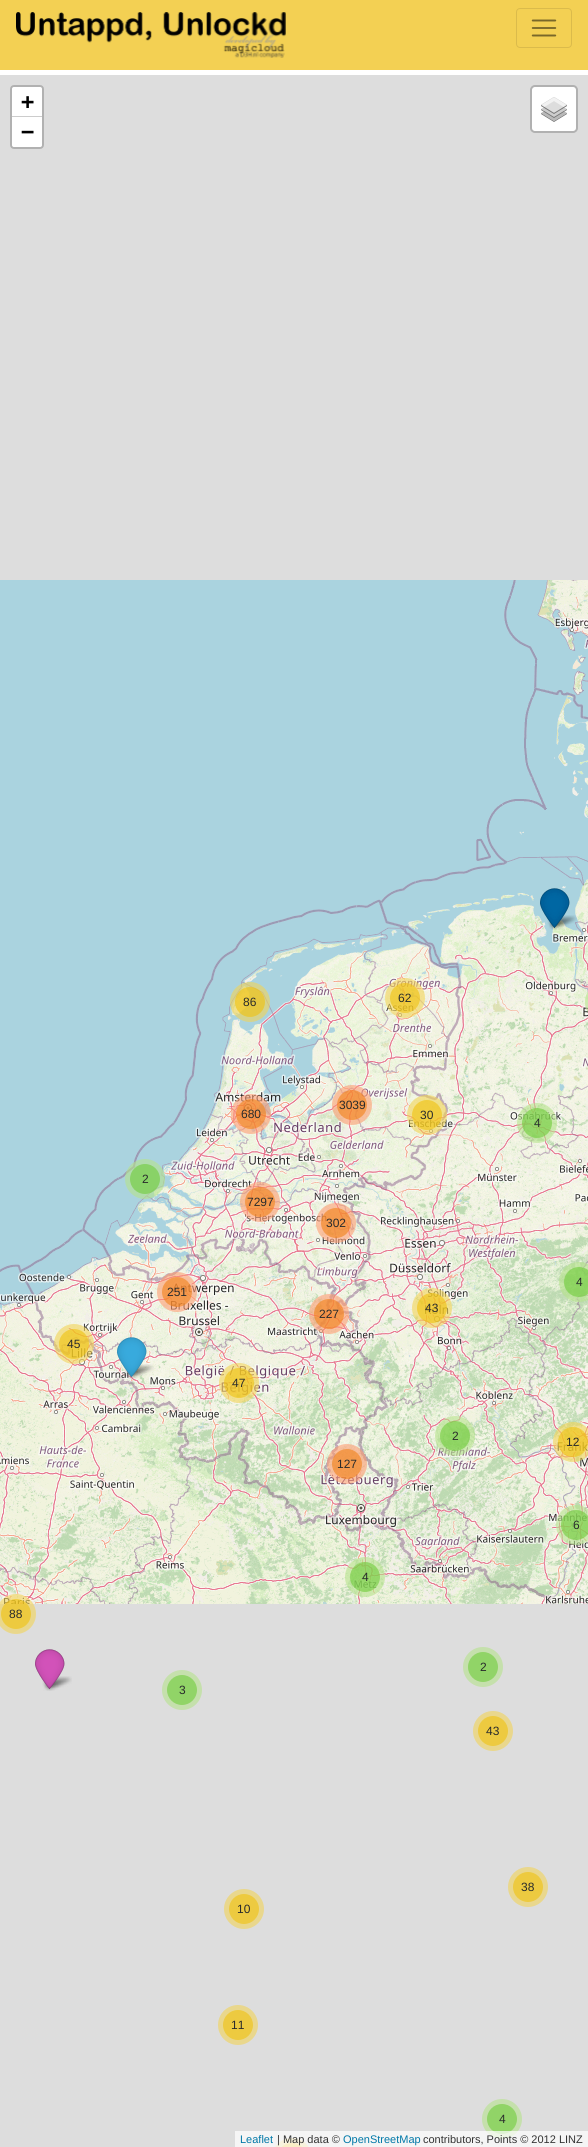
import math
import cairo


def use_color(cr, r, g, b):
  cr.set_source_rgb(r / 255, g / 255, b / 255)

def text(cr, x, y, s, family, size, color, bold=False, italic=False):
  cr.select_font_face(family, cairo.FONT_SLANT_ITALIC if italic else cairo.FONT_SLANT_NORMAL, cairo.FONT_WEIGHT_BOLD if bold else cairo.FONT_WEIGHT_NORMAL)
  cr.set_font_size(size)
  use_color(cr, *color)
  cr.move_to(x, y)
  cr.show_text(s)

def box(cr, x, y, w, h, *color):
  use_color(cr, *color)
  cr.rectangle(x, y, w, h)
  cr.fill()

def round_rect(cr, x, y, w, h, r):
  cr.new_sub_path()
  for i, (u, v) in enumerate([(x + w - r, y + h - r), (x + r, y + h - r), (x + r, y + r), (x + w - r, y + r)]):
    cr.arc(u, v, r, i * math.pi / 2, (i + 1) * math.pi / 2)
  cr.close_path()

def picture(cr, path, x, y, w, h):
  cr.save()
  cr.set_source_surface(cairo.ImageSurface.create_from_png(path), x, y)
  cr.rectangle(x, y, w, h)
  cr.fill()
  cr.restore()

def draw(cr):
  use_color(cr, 255, 255, 255)
  cr.paint()
  box(cr, 0, 0, 588, 70, 243, 208, 83)
  picture(cr, "img_01.png", 16, 12, 270, 46)
  round_rect(cr, 516.5, 8.5, 55, 39, 3.5)
  use_color(cr, 219, 187, 75)
  cr.set_line_width(1)
  cr.stroke()
  picture(cr, "img_02.png", 531, 19, 26, 18)
  box(cr, 0, 75, 588, 2072, 221, 221, 221)
  round_rect(cr, 11, 86, 32, 62, 3)
  use_color(cr, 177, 177, 177)
  cr.set_line_width(2)
  cr.stroke()
  use_color(cr, 255, 255, 255)
  cr.new_path()
  cr.move_to(14, 87)
  cr.line_to(40, 87)
  cr.curve_to(41, 87, 42, 88, 42, 89)
  cr.line_to(42, 117)
  cr.line_to(12, 117)
  cr.line_to(12, 89)
  cr.curve_to(12, 88, 13, 87, 14, 87)
  cr.close_path()
  cr.fill()
  box(cr, 12, 116, 30, 1, 204, 204, 204)
  use_color(cr, 255, 255, 255)
  cr.new_path()
  cr.move_to(12, 117)
  cr.line_to(42, 117)
  cr.line_to(42, 145)
  cr.curve_to(42, 146, 41, 147, 40, 147)
  cr.line_to(14, 147)
  cr.curve_to(13, 147, 12, 146, 12, 145)
  cr.close_path()
  cr.fill()
  round_rect(cr, 531, 86, 46, 46, 4)
  cr.fill_preserve()
  use_color(cr, 177, 177, 177)
  cr.stroke()
  picture(cr, "img_03.png", 541, 97, 26, 25)
  use_color(cr, 197, 224, 172)
  cr.arc(502, 2119, 20, 0, 2 * math.pi)
  cr.fill()
  use_color(cr, 145, 212, 103)
  cr.arc(502, 2119, 15, 0, 2 * math.pi)
  cr.fill()
  use_color(cr, 233, 215, 141)
  cr.new_path()
  cr.move_to(292, 2138)
  cr.curve_to(303, 2138, 312, 2147, 312, 2158)
  cr.line_to(312, 2147)
  cr.line_to(272, 2147)
  cr.line_to(272, 2158)
  cr.curve_to(272, 2147, 281, 2138, 292, 2138)
  cr.close_path()
  cr.fill()
  use_color(cr, 237, 202, 64)
  cr.new_path()
  cr.move_to(292, 2143)
  cr.curve_to(300.5, 2143, 307, 2149.5, 307, 2158)
  cr.line_to(307, 2147)
  cr.line_to(277, 2147)
  cr.line_to(277, 2158)
  cr.curve_to(277, 2149.5, 283.5, 2143, 292, 2143)
  cr.close_path()
  cr.fill()
  cr.set_source_rgba(1, 1, 1, 0.7)
  cr.rectangle(235, 2131, 353, 16)
  cr.fill()
  box(cr, 0, 580, 315, 256, 170, 211, 223)
  picture(cr, "img_04.png", 315, 580, 256, 256)
  picture(cr, "img_05.png", 571, 580, 17, 256)
  box(cr, 0, 836, 59, 256, 170, 211, 223)
  picture(cr, "img_06.png", 59, 836, 256, 256)
  picture(cr, "img_07.png", 315, 836, 256, 256)
  picture(cr, "img_08.png", 571, 836, 17, 256)
  picture(cr, "img_09.png", 0, 1092, 59, 256)
  picture(cr, "img_10.png", 59, 1092, 256, 256)
  picture(cr, "img_11.png", 315, 1092, 256, 256)
  picture(cr, "img_12.png", 571, 1092, 17, 256)
  picture(cr, "img_13.png", 0, 1348, 59, 256)
  picture(cr, "img_14.png", 59, 1348, 256, 256)
  picture(cr, "img_15.png", 315, 1348, 256, 256)
  picture(cr, "img_16.png", 571, 1348, 17, 256)
  picture(cr, "img_17.png", 547, 915, 30, 15)
  picture(cr, "img_18.png", 124, 1364, 30, 15)
  picture(cr, "img_19.png", 42, 1676, 30, 15)
  picture(cr, "img_20.png", 540, 888, 30, 41)
  cr.set_source_rgba(0.945, 0.827, 0.341, 0.6)
  cr.arc(250, 1002, 20, 0, 2 * math.pi)
  cr.fill()
  cr.set_source_rgba(0.941, 0.761, 0.047, 0.6)
  cr.arc(250, 1002, 15, 0, 2 * math.pi)
  cr.fill()
  cr.set_source_rgba(0.945, 0.827, 0.341, 0.6)
  cr.arc(405, 998, 20, 0, 2 * math.pi)
  cr.fill()
  cr.set_source_rgba(0.941, 0.761, 0.047, 0.6)
  cr.arc(405, 998, 15, 0, 2 * math.pi)
  cr.fill()
  cr.set_source_rgba(0.71, 0.886, 0.549, 0.6)
  cr.new_path()
  cr.move_to(605, 982)
  cr.line_to(588, 982)
  cr.line_to(588, 1022)
  cr.line_to(605, 1022)
  cr.curve_to(594, 1022, 585, 1013, 585, 1002)
  cr.curve_to(585, 991, 594, 982, 605, 982)
  cr.close_path()
  cr.fill()
  cr.set_source_rgba(0.992, 0.612, 0.451, 0.6)
  cr.arc(352, 1105, 20, 0, 2 * math.pi)
  cr.fill()
  cr.set_source_rgba(0.945, 0.502, 0.09, 0.6)
  cr.arc(352, 1105, 15, 0, 2 * math.pi)
  cr.fill()
  cr.set_source_rgba(0.992, 0.612, 0.451, 0.6)
  cr.arc(251, 1114, 20, 0, 2 * math.pi)
  cr.fill()
  cr.set_source_rgba(0.945, 0.502, 0.09, 0.6)
  cr.arc(251, 1114, 15, 0, 2 * math.pi)
  cr.fill()
  cr.set_source_rgba(0.945, 0.827, 0.341, 0.6)
  cr.arc(427, 1115, 20, 0, 2 * math.pi)
  cr.fill()
  cr.set_source_rgba(0.941, 0.761, 0.047, 0.6)
  cr.arc(427, 1115, 15, 0, 2 * math.pi)
  cr.fill()
  cr.set_source_rgba(0.71, 0.886, 0.549, 0.6)
  cr.arc(537, 1123, 20, 0, 2 * math.pi)
  cr.fill()
  cr.set_source_rgba(0.431, 0.8, 0.224, 0.6)
  cr.arc(537, 1123, 15, 0, 2 * math.pi)
  cr.fill()
  cr.set_source_rgba(0.71, 0.886, 0.549, 0.6)
  cr.arc(145, 1179, 20, 0, 2 * math.pi)
  cr.fill()
  cr.set_source_rgba(0.431, 0.8, 0.224, 0.6)
  cr.arc(145, 1179, 15, 0, 2 * math.pi)
  cr.fill()
  cr.set_source_rgba(0.992, 0.612, 0.451, 0.6)
  cr.arc(260, 1202, 20, 0, 2 * math.pi)
  cr.fill()
  cr.set_source_rgba(0.945, 0.502, 0.09, 0.6)
  cr.arc(260, 1202, 15, 0, 2 * math.pi)
  cr.fill()
  cr.set_source_rgba(0.992, 0.612, 0.451, 0.6)
  cr.arc(336, 1223, 20, 0, 2 * math.pi)
  cr.fill()
  cr.set_source_rgba(0.945, 0.502, 0.09, 0.6)
  cr.arc(336, 1223, 15, 0, 2 * math.pi)
  cr.fill()
  cr.set_source_rgba(0.71, 0.886, 0.549, 0.6)
  cr.arc(579, 1282, 20, 0, 2 * math.pi)
  cr.fill()
  cr.set_source_rgba(0.431, 0.8, 0.224, 0.6)
  cr.arc(579, 1282, 15, 0, 2 * math.pi)
  cr.fill()
  cr.set_source_rgba(0.992, 0.612, 0.451, 0.6)
  cr.arc(177, 1292, 20, 0, 2 * math.pi)
  cr.fill()
  cr.set_source_rgba(0.945, 0.502, 0.09, 0.6)
  cr.arc(177, 1292, 15, 0, 2 * math.pi)
  cr.fill()
  cr.set_source_rgba(0.992, 0.612, 0.451, 0.6)
  cr.arc(329, 1314, 20, 0, 2 * math.pi)
  cr.fill()
  cr.set_source_rgba(0.945, 0.502, 0.09, 0.6)
  cr.arc(329, 1314, 15, 0, 2 * math.pi)
  cr.fill()
  cr.set_source_rgba(0.945, 0.827, 0.341, 0.6)
  cr.arc(432, 1308, 20, 0, 2 * math.pi)
  cr.fill()
  cr.set_source_rgba(0.941, 0.761, 0.047, 0.6)
  cr.arc(432, 1308, 15, 0, 2 * math.pi)
  cr.fill()
  cr.set_source_rgba(0.945, 0.827, 0.341, 0.6)
  cr.arc(74, 1344, 20, 0, 2 * math.pi)
  cr.fill()
  cr.set_source_rgba(0.941, 0.761, 0.047, 0.6)
  cr.arc(74, 1344, 15, 0, 2 * math.pi)
  cr.fill()
  picture(cr, "img_21.png", 117, 1337, 30, 41)
  cr.set_source_rgba(0.945, 0.827, 0.341, 0.6)
  cr.arc(239, 1383, 20, 0, 2 * math.pi)
  cr.fill()
  cr.set_source_rgba(0.941, 0.761, 0.047, 0.6)
  cr.arc(239, 1383, 15, 0, 2 * math.pi)
  cr.fill()
  cr.set_source_rgba(0.71, 0.886, 0.549, 0.6)
  cr.arc(455, 1436, 20, 0, 2 * math.pi)
  cr.fill()
  cr.set_source_rgba(0.431, 0.8, 0.224, 0.6)
  cr.arc(455, 1436, 15, 0, 2 * math.pi)
  cr.fill()
  cr.set_source_rgba(0.945, 0.827, 0.341, 0.6)
  cr.arc(573, 1442, 20, 0, 2 * math.pi)
  cr.fill()
  cr.set_source_rgba(0.941, 0.761, 0.047, 0.6)
  cr.arc(573, 1442, 15, 0, 2 * math.pi)
  cr.fill()
  cr.set_source_rgba(0.992, 0.612, 0.451, 0.6)
  cr.arc(347, 1464, 20, 0, 2 * math.pi)
  cr.fill()
  cr.set_source_rgba(0.945, 0.502, 0.09, 0.6)
  cr.arc(347, 1464, 15, 0, 2 * math.pi)
  cr.fill()
  cr.set_source_rgba(0.71, 0.886, 0.549, 0.6)
  cr.arc(576, 1525, 20, 0, 2 * math.pi)
  cr.fill()
  cr.set_source_rgba(0.431, 0.8, 0.224, 0.6)
  cr.arc(576, 1525, 15, 0, 2 * math.pi)
  cr.fill()
  cr.set_source_rgba(0.71, 0.886, 0.549, 0.6)
  cr.arc(365, 1577, 20, 0, 2 * math.pi)
  cr.fill()
  cr.set_source_rgba(0.431, 0.8, 0.224, 0.6)
  cr.arc(365, 1577, 15, 0, 2 * math.pi)
  cr.fill()
  cr.set_source_rgba(0.945, 0.827, 0.341, 0.6)
  cr.arc(16, 1614, 20, 0, 2 * math.pi)
  cr.fill()
  cr.set_source_rgba(0.941, 0.761, 0.047, 0.6)
  cr.arc(16, 1614, 15, 0, 2 * math.pi)
  cr.fill()
  picture(cr, "img_22.png", 35, 1649, 30, 41)
  use_color(cr, 197, 224, 172)
  cr.arc(483, 1667, 20, 0, 2 * math.pi)
  cr.fill()
  use_color(cr, 145, 212, 103)
  cr.arc(483, 1667, 15, 0, 2 * math.pi)
  cr.fill()
  use_color(cr, 197, 224, 172)
  cr.arc(182, 1690, 20, 0, 2 * math.pi)
  cr.fill()
  use_color(cr, 145, 212, 103)
  cr.arc(182, 1690, 15, 0, 2 * math.pi)
  cr.fill()
  use_color(cr, 233, 215, 141)
  cr.arc(493, 1731, 20, 0, 2 * math.pi)
  cr.fill()
  use_color(cr, 237, 202, 64)
  cr.arc(493, 1731, 15, 0, 2 * math.pi)
  cr.fill()
  use_color(cr, 233, 215, 141)
  cr.arc(528, 1887, 20, 0, 2 * math.pi)
  cr.fill()
  use_color(cr, 237, 202, 64)
  cr.arc(528, 1887, 15, 0, 2 * math.pi)
  cr.fill()
  use_color(cr, 233, 215, 141)
  cr.arc(244, 1909, 20, 0, 2 * math.pi)
  cr.fill()
  use_color(cr, 237, 202, 64)
  cr.arc(244, 1909, 15, 0, 2 * math.pi)
  cr.fill()
  use_color(cr, 233, 215, 141)
  cr.arc(238, 2025, 20, 0, 2 * math.pi)
  cr.fill()
  use_color(cr, 237, 202, 64)
  cr.arc(238, 2025, 15, 0, 2 * math.pi)
  cr.fill()
  text(cr, 21, 109, "+", "DejaVu Sans Mono", 22, (0, 0, 0), bold=True)
  text(cr, 21, 139, "−", "DejaVu Sans Mono", 22, (0, 0, 0), bold=True)
  text(cr, 240, 2143, "Leaflet", "Liberation Sans", 11, (0, 120, 168))
  text(cr, 277, 2143, "| Map data ©", "Liberation Sans", 11, (51, 51, 51))
  text(cr, 343, 2143, "OpenStreetMap", "Liberation Sans", 11, (0, 120, 168))
  text(cr, 423, 2143, "contributors, Points © 2012 LINZ", "Liberation Sans", 11, (51, 51, 51))
  text(cr, 243, 1006, "86", "Liberation Sans", 12, (41, 43, 44))
  text(cr, 398, 1002, "62", "Liberation Sans", 12, (41, 43, 44))
  text(cr, 339, 1109, "3039", "Liberation Sans", 12, (41, 43, 44))
  text(cr, 241, 1118, "680", "Liberation Sans", 12, (41, 43, 44))
  text(cr, 420, 1119, "30", "Liberation Sans", 12, (41, 43, 44))
  text(cr, 534, 1127, "4", "Liberation Sans", 12, (41, 43, 44))
  text(cr, 142, 1183, "2", "Liberation Sans", 12, (41, 43, 44))
  text(cr, 247, 1206, "7297", "Liberation Sans", 12, (41, 43, 44))
  text(cr, 326, 1227, "302", "Liberation Sans", 12, (41, 43, 44))
  text(cr, 576, 1286, "4", "Liberation Sans", 12, (41, 43, 44))
  text(cr, 167, 1296, "251", "Liberation Sans", 12, (41, 43, 44))
  text(cr, 319, 1318, "227", "Liberation Sans", 12, (41, 43, 44))
  text(cr, 425, 1312, "43", "Liberation Sans", 12, (41, 43, 44))
  text(cr, 67, 1348, "45", "Liberation Sans", 12, (41, 43, 44))
  text(cr, 232, 1387, "47", "Liberation Sans", 12, (41, 43, 44))
  text(cr, 452, 1440, "2", "Liberation Sans", 12, (41, 43, 44))
  text(cr, 566, 1446, "12", "Liberation Sans", 12, (41, 43, 44))
  text(cr, 337, 1468, "127", "Liberation Sans", 12, (41, 43, 44))
  text(cr, 573, 1529, "6", "Liberation Sans", 12, (41, 43, 44))
  text(cr, 362, 1581, "4", "Liberation Sans", 12, (41, 43, 44))
  text(cr, 9, 1618, "88", "Liberation Sans", 12, (41, 43, 44))
  text(cr, 480, 1671, "2", "Liberation Sans", 12, (41, 43, 44))
  text(cr, 179, 1694, "3", "Liberation Sans", 12, (41, 43, 44))
  text(cr, 486, 1735, "43", "Liberation Sans", 12, (41, 43, 44))
  text(cr, 521, 1891, "38", "Liberation Sans", 12, (41, 43, 44))
  text(cr, 237, 1913, "10", "Liberation Sans", 12, (41, 43, 44))
  text(cr, 231, 2029, "11", "Liberation Sans", 12, (41, 43, 44))
  text(cr, 499, 2123, "4", "Liberation Sans", 12, (41, 43, 44))


surface = cairo.ImageSurface(cairo.FORMAT_RGB24, 588, 2147)
cr = cairo.Context(surface)
options = cairo.FontOptions()
options.set_hint_metrics(cairo.HINT_METRICS_OFF)
options.set_hint_style(cairo.HINT_STYLE_NONE)
cr.set_font_options(options)
cr.set_miter_limit(4)
draw(cr)
surface.write_to_png("out.png")
